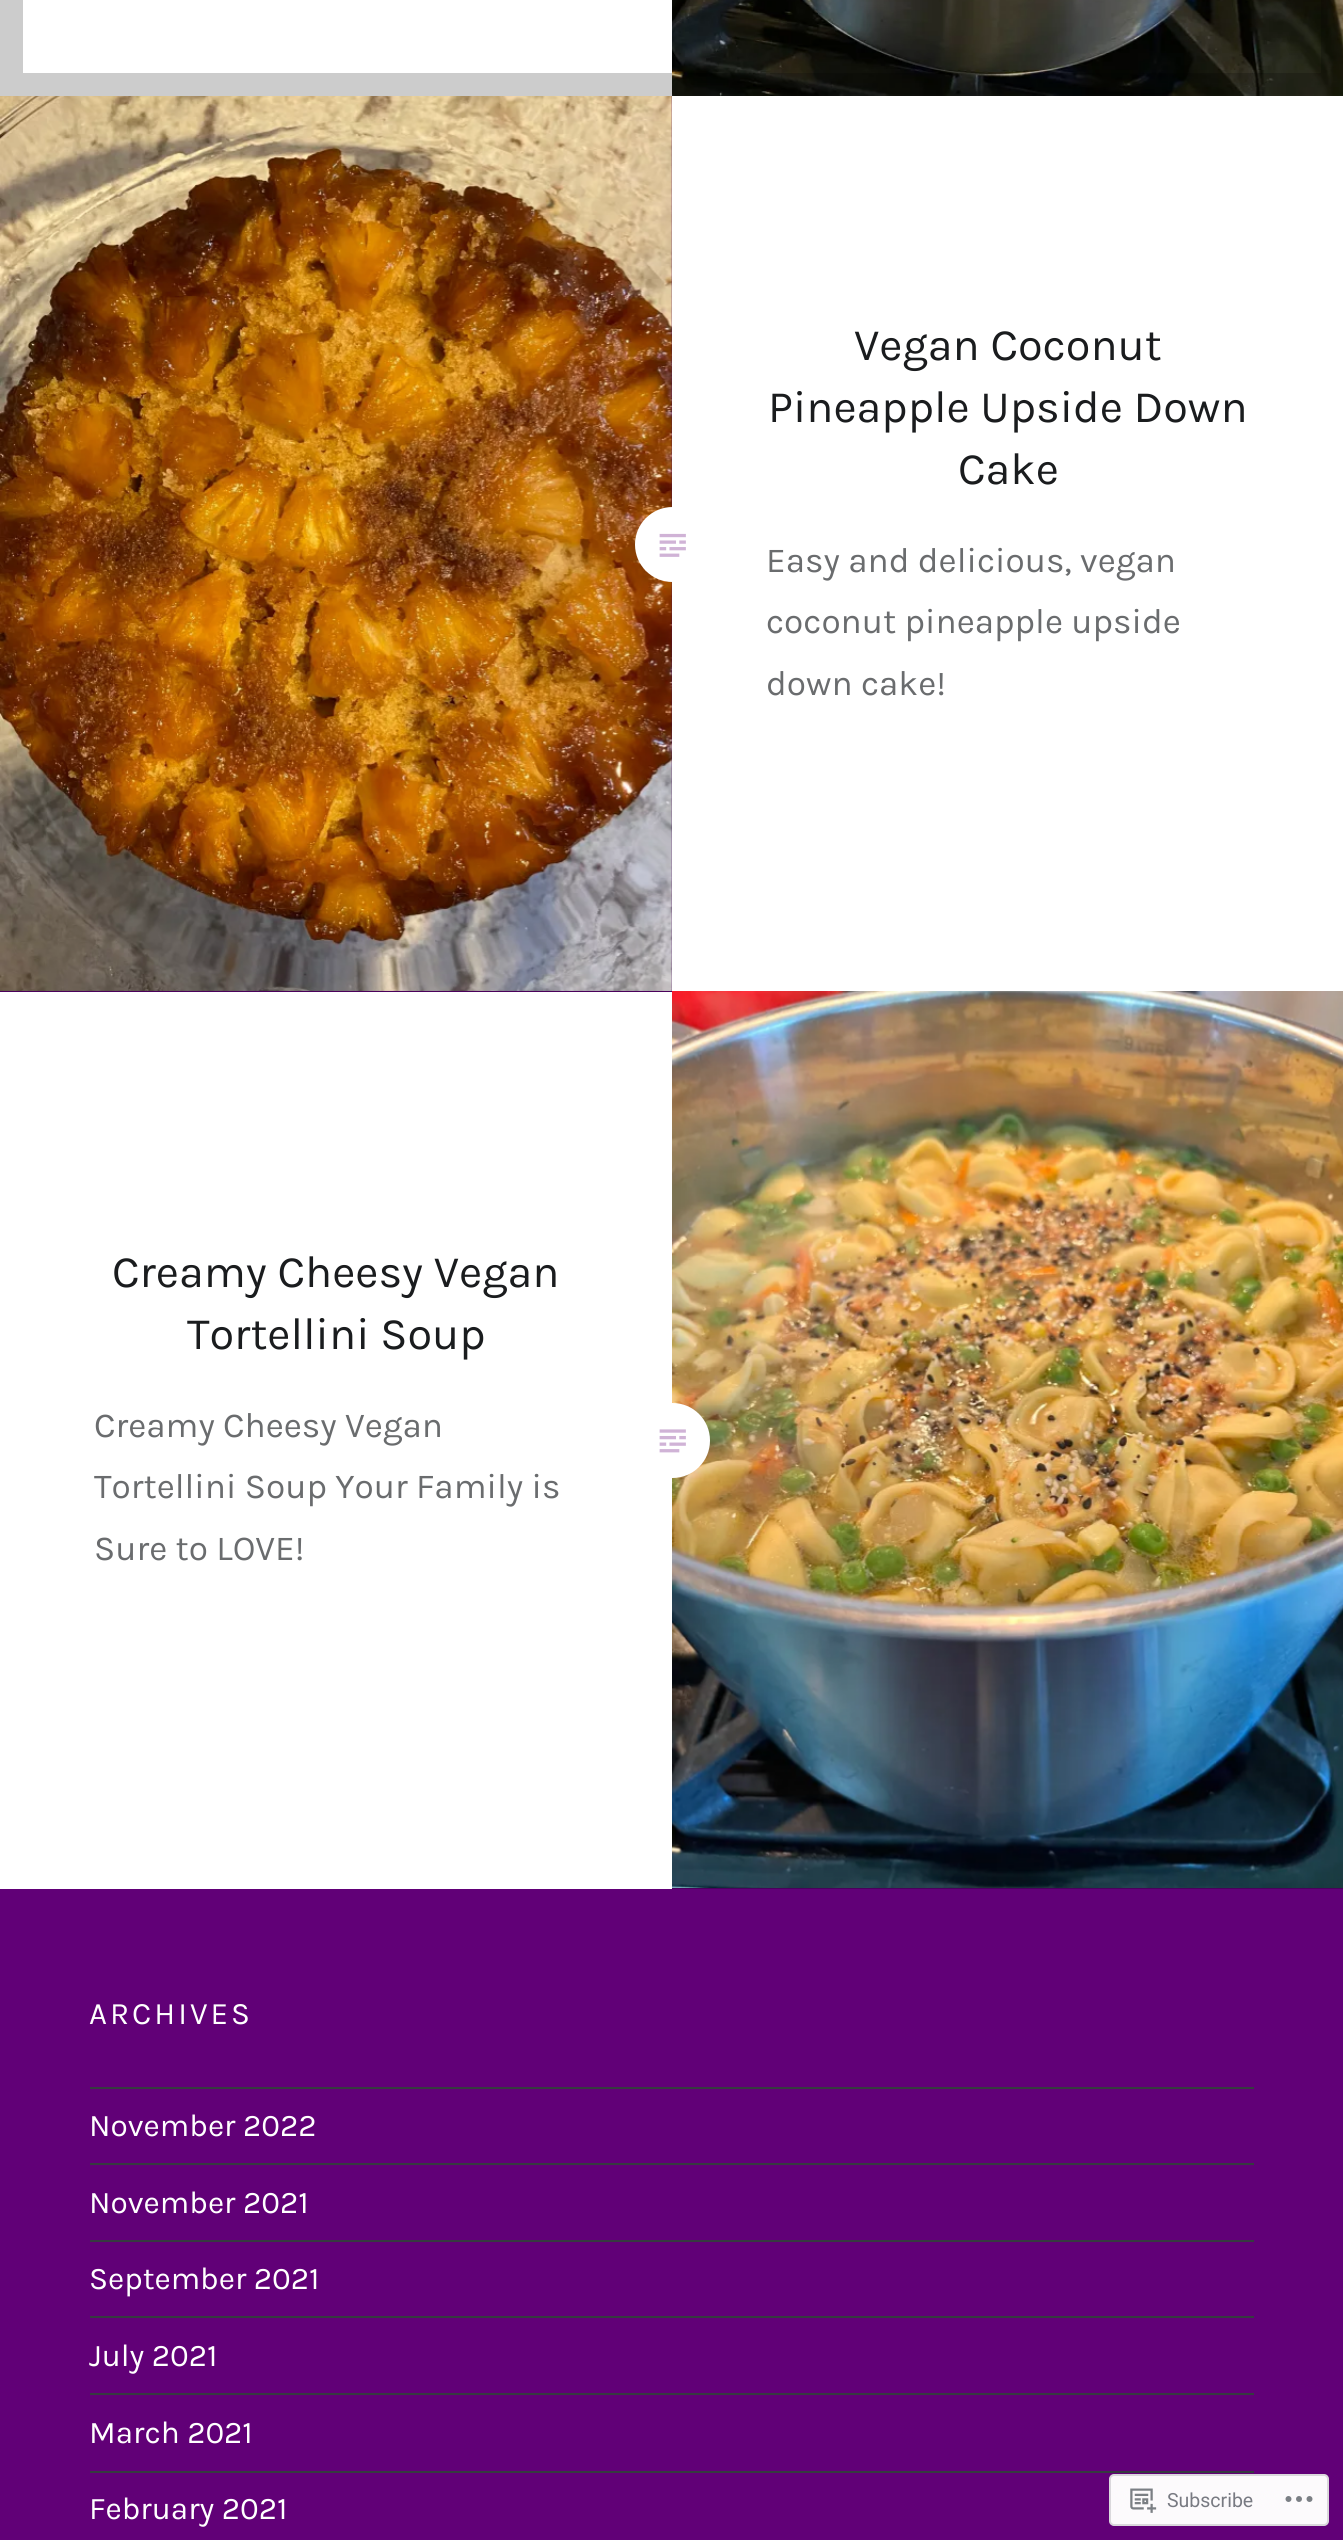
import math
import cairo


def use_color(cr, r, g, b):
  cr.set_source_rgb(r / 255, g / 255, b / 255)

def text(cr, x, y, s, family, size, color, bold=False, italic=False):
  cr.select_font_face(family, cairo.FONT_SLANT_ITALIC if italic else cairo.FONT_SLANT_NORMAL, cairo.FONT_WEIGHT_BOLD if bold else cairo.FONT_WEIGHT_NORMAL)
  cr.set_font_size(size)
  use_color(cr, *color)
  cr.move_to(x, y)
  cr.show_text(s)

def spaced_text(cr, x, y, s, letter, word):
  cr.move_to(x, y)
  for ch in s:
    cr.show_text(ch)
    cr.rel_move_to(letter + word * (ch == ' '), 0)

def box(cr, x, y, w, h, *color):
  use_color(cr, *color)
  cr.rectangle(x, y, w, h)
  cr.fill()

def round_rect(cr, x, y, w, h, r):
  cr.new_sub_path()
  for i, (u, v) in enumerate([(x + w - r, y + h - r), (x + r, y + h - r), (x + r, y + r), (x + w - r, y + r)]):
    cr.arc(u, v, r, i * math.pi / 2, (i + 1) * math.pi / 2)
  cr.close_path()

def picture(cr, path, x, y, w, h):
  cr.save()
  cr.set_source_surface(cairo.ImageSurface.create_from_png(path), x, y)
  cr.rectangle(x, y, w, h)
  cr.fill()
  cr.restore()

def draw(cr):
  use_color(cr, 255, 255, 255)
  cr.paint()
  picture(cr, "img_01.png", 672, 0, 671, 96)
  cr.rectangle(11.5, -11.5, 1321, 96)
  cr.set_source_rgba(0, 0, 0, 0.2)
  cr.set_line_width(23)
  cr.stroke()
  box(cr, 0, 96, 672, 896, 74, 0, 91)
  picture(cr, "img_02.png", 0, 96, 672, 895)
  use_color(cr, 255, 255, 255)
  cr.arc(672.5, 544.5, 37.5, 0, 2 * math.pi)
  cr.fill()
  picture(cr, "img_03.png", 659, 533, 27, 24)
  picture(cr, "img_05.png", 672, 991, 671, 897)
  cr.arc(672.5, 1440.5, 37.5, 0, 2 * math.pi)
  cr.fill()
  picture(cr, "img_04.png", 659, 1429, 27, 24)
  box(cr, 672, 1888, 671, 1, 74, 0, 91)
  box(cr, 0, 1889, 1343, 651, 97, 0, 119)
  box(cr, 90, 2087, 1164, 2, 54, 59, 64)
  box(cr, 90, 2163, 1164, 2, 54, 59, 64)
  box(cr, 90, 2240, 1164, 2, 54, 59, 64)
  box(cr, 90, 2316, 1164, 2, 54, 59, 64)
  box(cr, 90, 2393, 1164, 2, 54, 59, 64)
  box(cr, 90, 2471, 1164, 2, 54, 59, 64)
  use_color(cr, 252, 250, 252)
  round_rect(cr, 1110, 2475, 218, 50, 4)
  cr.fill_preserve()
  use_color(cr, 218, 216, 220)
  cr.set_line_width(2)
  cr.stroke()
  picture(cr, "img_06.png", 1130, 2488, 27, 25)
  picture(cr, "img_07.png", 1285, 2496, 28, 6)
  text(cr, 854, 360, "Vegan Coconut", "Karla", 45, (26, 28, 30))
  text(cr, 768, 422, "Pineapple Upside Down", "Karla", 45, (26, 28, 30))
  text(cr, 958, 484, "Cake", "Karla", 45, (26, 28, 30))
  text(cr, 766, 572, "Easy and delicious, vegan", "Karla", 35.1, (106, 108, 110))
  text(cr, 766, 633, "coconut pineapple upside", "Karla", 35.1, (106, 108, 110))
  text(cr, 766, 695, "down cake!", "Karla", 35.1, (106, 108, 110))
  text(cr, 112, 1287, "Creamy Cheesy Vegan", "Karla", 45, (26, 28, 30))
  text(cr, 187, 1349, "Tortellini Soup", "Karla", 45, (26, 28, 30))
  text(cr, 94, 1437, "Creamy Cheesy Vegan", "Karla", 35.1, (106, 108, 110))
  text(cr, 94, 1498, "Tortellini Soup Your Family is", "Karla", 35.1, (106, 108, 110))
  text(cr, 94, 1560, "Sure to LOVE!", "Karla", 35.1, (106, 108, 110))
  cr.set_font_size(31.25)
  use_color(cr, 255, 255, 255)
  spaced_text(cr, 89, 2024, "ARCHIVES", 3, 0)
  text(cr, 89, 2136, "November 2022", "Karla", 31.5, (255, 255, 255))
  text(cr, 89, 2213, "November 2021", "Karla", 31.5, (255, 255, 255))
  text(cr, 89, 2289, "September 2021", "Karla", 31.5, (255, 255, 255))
  text(cr, 89, 2366, "July 2021", "Karla", 31.5, (255, 255, 255))
  text(cr, 89, 2443, "March 2021", "Karla", 31.5, (255, 255, 255))
  text(cr, 89, 2519, "February 2021", "Karla", 31.5, (255, 255, 255))
  text(cr, 1167, 2507, "Subscribe", "Roboto", 19.5, (120, 122, 130))


surface = cairo.ImageSurface(cairo.FORMAT_RGB24, 1343, 2540)
cr = cairo.Context(surface)
options = cairo.FontOptions()
options.set_hint_metrics(cairo.HINT_METRICS_OFF)
options.set_hint_style(cairo.HINT_STYLE_NONE)
cr.set_font_options(options)
cr.set_miter_limit(4)
draw(cr)
surface.write_to_png("out.png")
